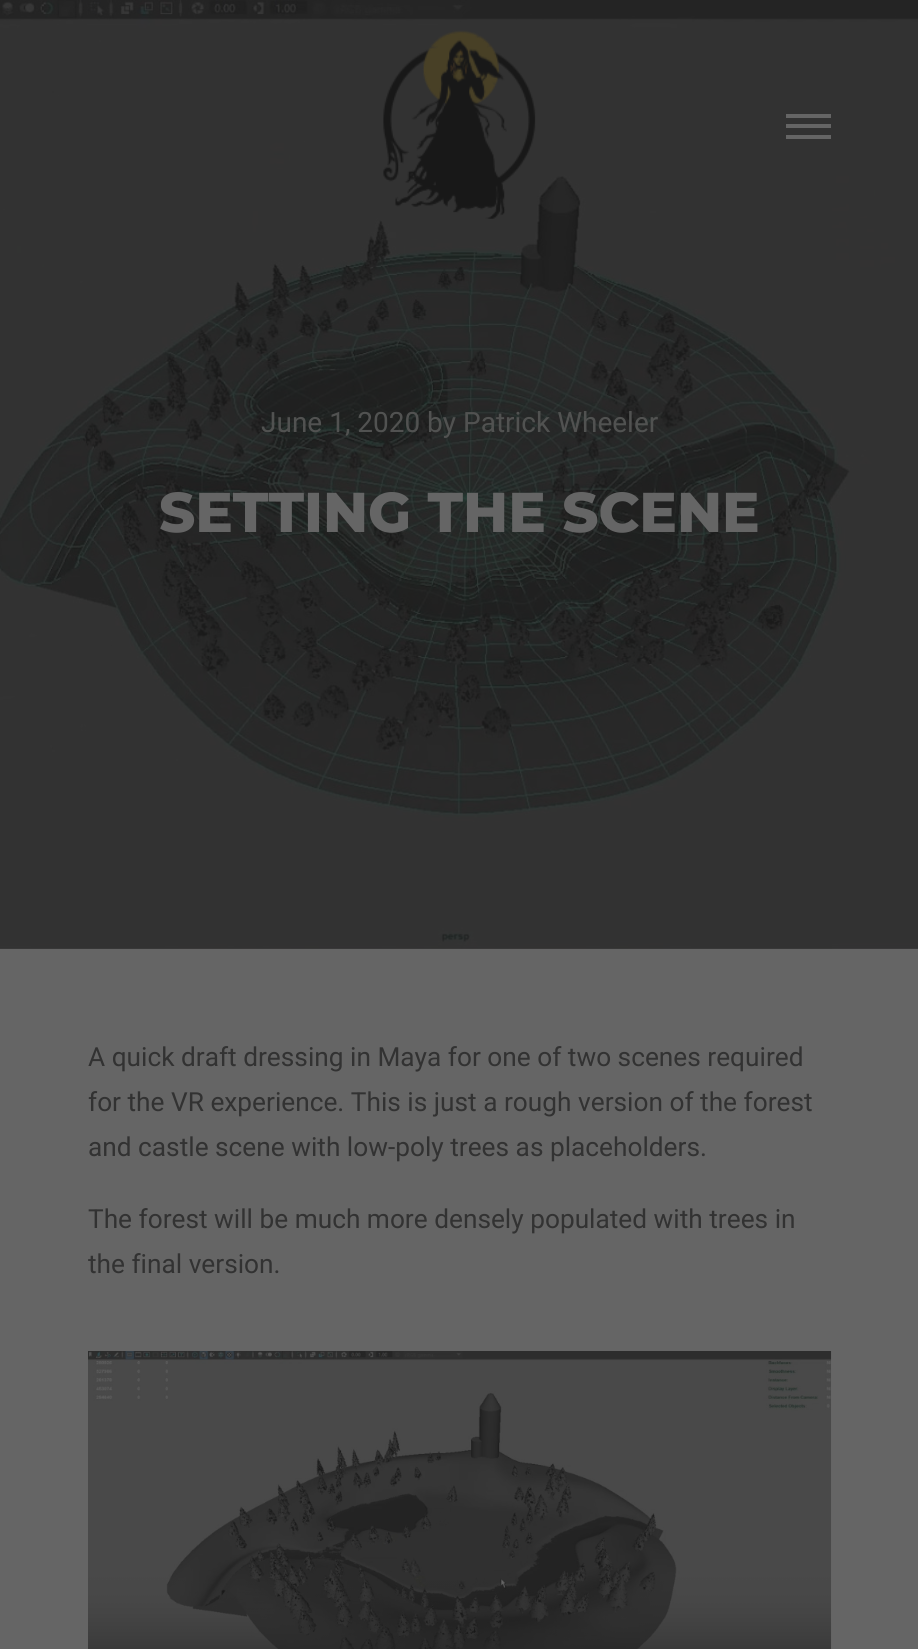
import math
import cairo


def use_color(cr, r, g, b):
  cr.set_source_rgb(r / 255, g / 255, b / 255)

def text(cr, x, y, s, family, size, color, bold=False, italic=False):
  cr.select_font_face(family, cairo.FONT_SLANT_ITALIC if italic else cairo.FONT_SLANT_NORMAL, cairo.FONT_WEIGHT_BOLD if bold else cairo.FONT_WEIGHT_NORMAL)
  cr.set_font_size(size)
  use_color(cr, *color)
  cr.move_to(x, y)
  cr.show_text(s)

def box(cr, x, y, w, h, *color):
  use_color(cr, *color)
  cr.rectangle(x, y, w, h)
  cr.fill()

def picture(cr, path, x, y, w, h):
  cr.save()
  cr.set_source_surface(cairo.ImageSurface.create_from_png(path), x, y)
  cr.rectangle(x, y, w, h)
  cr.fill()
  cr.restore()

def draw(cr):
  use_color(cr, 101, 101, 101)
  cr.paint()
  box(cr, 0, 948, 918, 1, 64, 64, 64)
  picture(cr, "img_02.png", 0, 0, 918, 949)
  picture(cr, "img_01.png", 383, 30, 153, 189)
  box(cr, 786, 124, 45, 4, 101, 101, 101)
  box(cr, 786, 114, 45, 4, 101, 101, 101)
  box(cr, 786, 135, 45, 4, 101, 101, 101)
  picture(cr, "img_03.png", 88, 1351, 744, 298)
  text(cr, 261, 432, "June 1, 2020", "Roboto", 28, (81, 82, 81))
  text(cr, 427, 432, "by", "Roboto", 28, (81, 82, 81))
  text(cr, 463, 432, "Patrick Wheeler", "Roboto", 28, (81, 82, 81))
  text(cr, 159, 532, "SETTING THE SCENE", "Montserrat ExtraBold", 56, (101, 101, 101))
  text(cr, 88, 1066, "A quick draft dressing in Maya for one of two scenes required", "Roboto", 26.25, (50, 50, 50))
  text(cr, 88, 1111, "for the VR experience. This is just a rough version of the forest", "Roboto", 26.25, (50, 50, 50))
  text(cr, 88, 1156, "and castle scene with low-poly trees as placeholders.", "Roboto", 26.25, (50, 50, 50))
  text(cr, 88, 1228, "The forest will be much more densely populated with trees in", "Roboto", 26.25, (50, 50, 50))
  text(cr, 88, 1273, "the final version.", "Roboto", 26.25, (50, 50, 50))


surface = cairo.ImageSurface(cairo.FORMAT_RGB24, 918, 1649)
cr = cairo.Context(surface)
options = cairo.FontOptions()
options.set_hint_metrics(cairo.HINT_METRICS_OFF)
options.set_hint_style(cairo.HINT_STYLE_NONE)
cr.set_font_options(options)
cr.set_miter_limit(4)
draw(cr)
surface.write_to_png("out.png")
